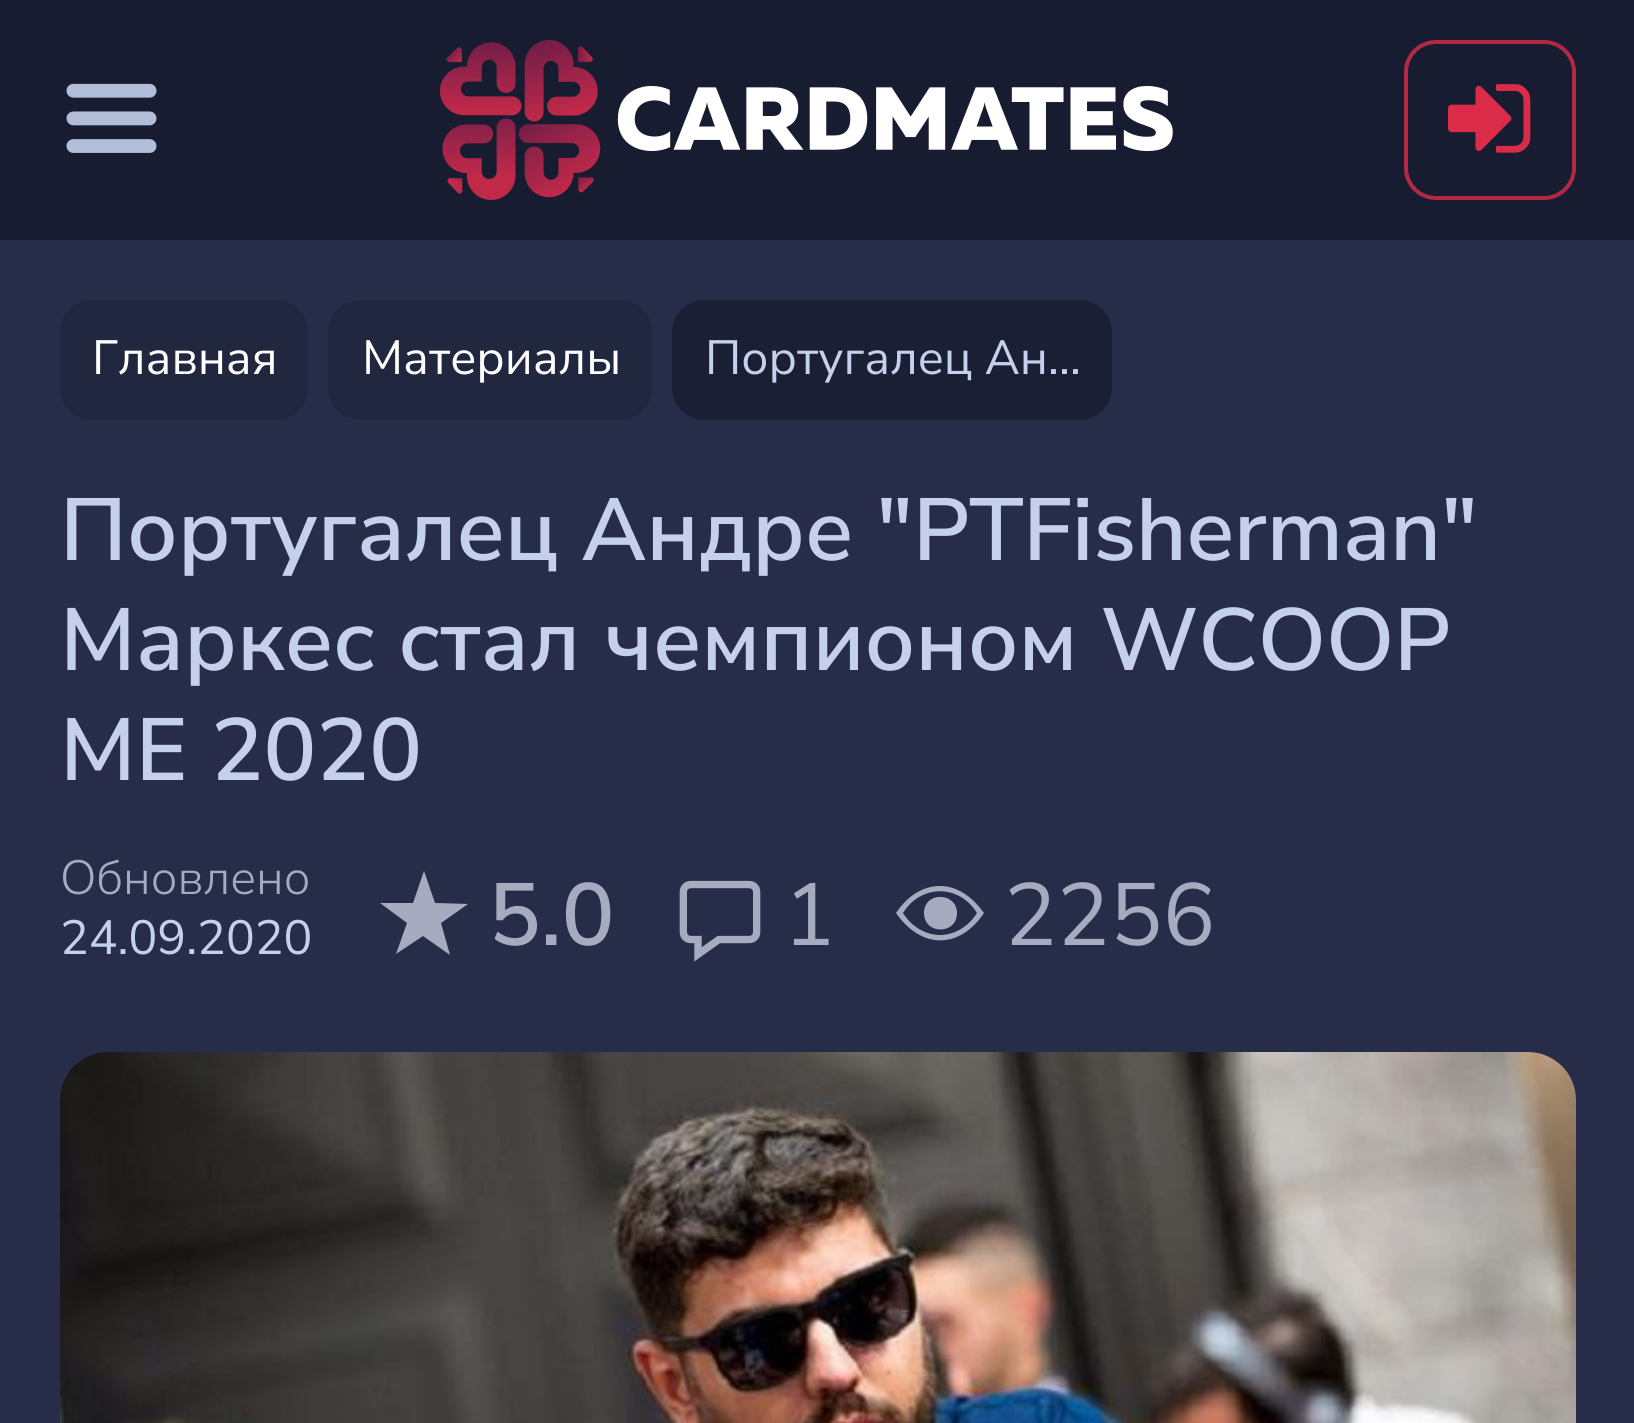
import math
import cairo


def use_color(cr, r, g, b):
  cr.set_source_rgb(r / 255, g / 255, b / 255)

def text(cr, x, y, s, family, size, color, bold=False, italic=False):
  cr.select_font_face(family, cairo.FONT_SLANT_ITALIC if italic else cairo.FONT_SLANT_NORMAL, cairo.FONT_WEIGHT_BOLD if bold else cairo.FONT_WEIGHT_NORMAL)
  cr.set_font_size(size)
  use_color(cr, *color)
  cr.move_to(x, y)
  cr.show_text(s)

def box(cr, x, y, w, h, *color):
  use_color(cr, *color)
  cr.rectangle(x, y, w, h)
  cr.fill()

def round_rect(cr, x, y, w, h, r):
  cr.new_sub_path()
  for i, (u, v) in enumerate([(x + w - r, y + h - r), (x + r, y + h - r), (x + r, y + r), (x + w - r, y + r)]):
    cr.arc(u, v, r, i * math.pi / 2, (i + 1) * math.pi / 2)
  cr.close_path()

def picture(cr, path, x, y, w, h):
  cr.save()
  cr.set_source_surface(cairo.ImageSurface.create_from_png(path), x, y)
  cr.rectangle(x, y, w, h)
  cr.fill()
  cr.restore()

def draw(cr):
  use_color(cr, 39, 45, 73)
  cr.paint()
  box(cr, 0, 0, 1634, 240, 24, 28, 48)
  picture(cr, "img_01.png", 66, 83, 91, 70)
  picture(cr, "img_02.png", 440, 40, 733, 160)
  round_rect(cr, 1406, 42, 168, 156, 30)
  use_color(cr, 179, 41, 67)
  cr.set_line_width(4)
  cr.stroke()
  picture(cr, "img_03.png", 1448, 84, 83, 69)
  use_color(cr, 34, 39, 64)
  round_rect(cr, 60, 300, 248, 120, 32)
  cr.fill()
  round_rect(cr, 328, 300, 324, 120, 32)
  cr.fill()
  use_color(cr, 27, 31, 51)
  round_rect(cr, 672, 300, 440, 120, 32)
  cr.fill()
  use_color(cr, 166, 171, 191)
  cr.new_path()
  cr.move_to(380, 903)
  cr.line_to(413, 903)
  cr.line_to(424, 871)
  cr.line_to(435, 903)
  cr.line_to(468, 904)
  cr.line_to(441, 923)
  cr.line_to(450, 955)
  cr.line_to(423, 936)
  cr.line_to(396, 954)
  cr.line_to(407, 923)
  cr.close_path()
  cr.fill()
  picture(cr, "img_04.png", 679, 880, 82, 82)
  cr.new_path()
  cr.move_to(957, 913)
  cr.curve_to(957, 935, 924, 935, 924, 913)
  cr.curve_to(924, 891, 957, 892, 957, 913)
  cr.close_path()
  cr.move_to(940, 886)
  cr.curve_to(921, 886, 906, 898, 896, 913)
  cr.curve_to(921, 949, 959, 950, 984, 913)
  cr.curve_to(974, 899, 959, 886, 940, 886)
  cr.close_path()
  cr.move_to(940, 935)
  cr.curve_to(925, 935, 911, 926, 903, 913)
  cr.curve_to(921, 884, 959, 884, 977, 913)
  cr.curve_to(969, 926, 955, 935, 940, 935)
  cr.close_path()
  cr.fill()
  picture(cr, "img_05.png", 60, 1052, 1516, 371)
  text(cr, 92, 374, "Главная", "Nunito Sans", 48, (255, 255, 255))
  text(cr, 362, 374, "Материалы", "Nunito Sans", 48, (255, 255, 255))
  text(cr, 705, 374, "Португалец Ан…", "Nunito Sans", 48, (197, 208, 236))
  text(cr, 60, 560, "Португалец Андре \"PTFisherman\"", "Nunito Sans SemiBold", 88, (197, 208, 236))
  text(cr, 60, 670, "Маркес стал чемпионом WCOOP", "Nunito Sans SemiBold", 88, (197, 208, 236))
  text(cr, 60, 780, "ME 2020", "Nunito Sans SemiBold", 88, (197, 208, 236))
  text(cr, 60, 894, "Обновлено", "Nunito Sans Light", 48, (166, 171, 191))
  text(cr, 60, 954, "24.09.2020", "Nunito Sans", 48, (197, 208, 236))
  text(cr, 488, 945, "5.0", "Nunito Sans SemiBold", 88, (166, 171, 191))
  text(cr, 783, 945, "1", "Nunito Sans", 88, (166, 171, 191))
  text(cr, 1004, 945, "2256", "Nunito Sans", 88, (166, 171, 191))


surface = cairo.ImageSurface(cairo.FORMAT_RGB24, 1634, 1423)
cr = cairo.Context(surface)
options = cairo.FontOptions()
options.set_hint_metrics(cairo.HINT_METRICS_OFF)
options.set_hint_style(cairo.HINT_STYLE_NONE)
cr.set_font_options(options)
cr.set_miter_limit(4)
draw(cr)
surface.write_to_png("out.png")
